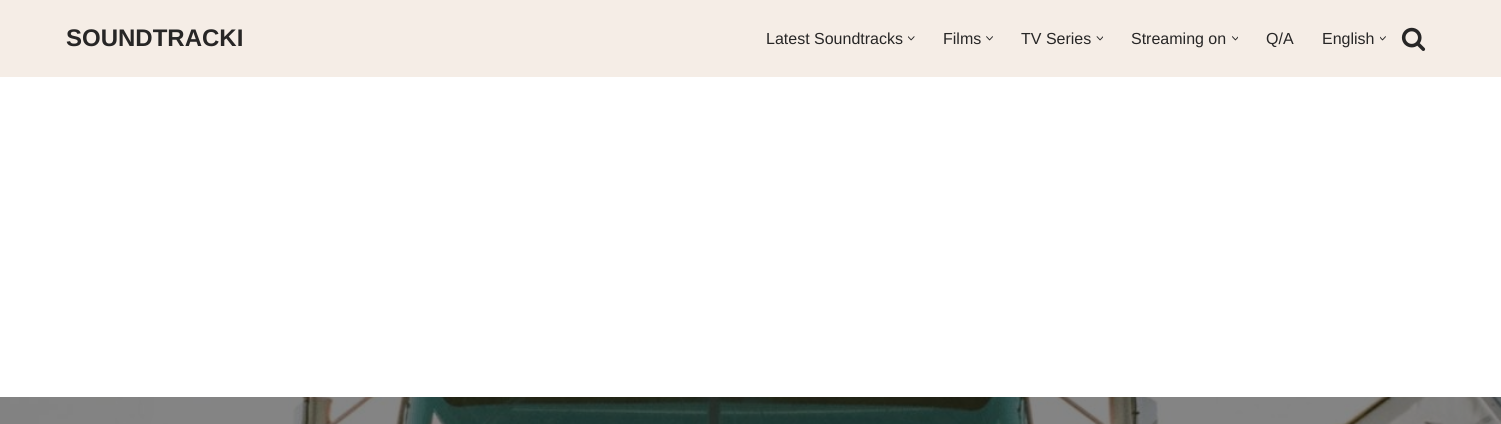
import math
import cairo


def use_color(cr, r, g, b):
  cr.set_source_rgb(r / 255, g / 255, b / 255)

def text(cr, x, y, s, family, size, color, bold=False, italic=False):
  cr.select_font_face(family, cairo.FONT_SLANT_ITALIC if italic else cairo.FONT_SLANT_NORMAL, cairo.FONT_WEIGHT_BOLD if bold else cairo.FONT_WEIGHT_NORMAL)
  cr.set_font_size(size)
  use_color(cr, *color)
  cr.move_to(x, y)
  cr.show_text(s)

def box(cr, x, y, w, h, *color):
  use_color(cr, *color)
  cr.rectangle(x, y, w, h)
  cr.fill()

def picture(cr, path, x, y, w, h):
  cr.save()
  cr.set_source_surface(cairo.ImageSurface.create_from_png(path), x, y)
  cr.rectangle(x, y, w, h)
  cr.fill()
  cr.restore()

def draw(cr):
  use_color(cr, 255, 255, 255)
  cr.paint()
  box(cr, 0, 0, 1501, 77, 245, 237, 230)
  picture(cr, "img_01.png", 908, 36, 7, 5)
  picture(cr, "img_02.png", 986, 36, 7, 5)
  picture(cr, "img_03.png", 1096, 36, 7, 5)
  picture(cr, "img_04.png", 1232, 36, 6, 5)
  picture(cr, "img_05.png", 1380, 36, 6, 5)
  picture(cr, "img_06.png", 1401, 27, 25, 24)
  picture(cr, "img_07.png", 0, 397, 1501, 27)
  text(cr, 66, 46, "SOUNDTRACKI", "Liberation Sans", 24, (39, 38, 38), bold=True)
  text(cr, 766, 44, "Latest Soundtracks", "Liberation Sans", 16, (39, 38, 38))
  text(cr, 943, 44, "Films", "Liberation Sans", 16, (39, 38, 38))
  text(cr, 1021, 44, "TV Series", "Liberation Sans", 16, (39, 38, 38))
  text(cr, 1131, 44, "Streaming on", "Liberation Sans", 16, (39, 38, 38))
  text(cr, 1266, 44, "Q/A", "Liberation Sans", 16, (39, 38, 38))
  text(cr, 1322, 44, "English", "Liberation Sans", 16, (39, 38, 38))


surface = cairo.ImageSurface(cairo.FORMAT_RGB24, 1501, 424)
cr = cairo.Context(surface)
options = cairo.FontOptions()
options.set_hint_metrics(cairo.HINT_METRICS_OFF)
options.set_hint_style(cairo.HINT_STYLE_NONE)
cr.set_font_options(options)
cr.set_miter_limit(4)
draw(cr)
surface.write_to_png("out.png")
